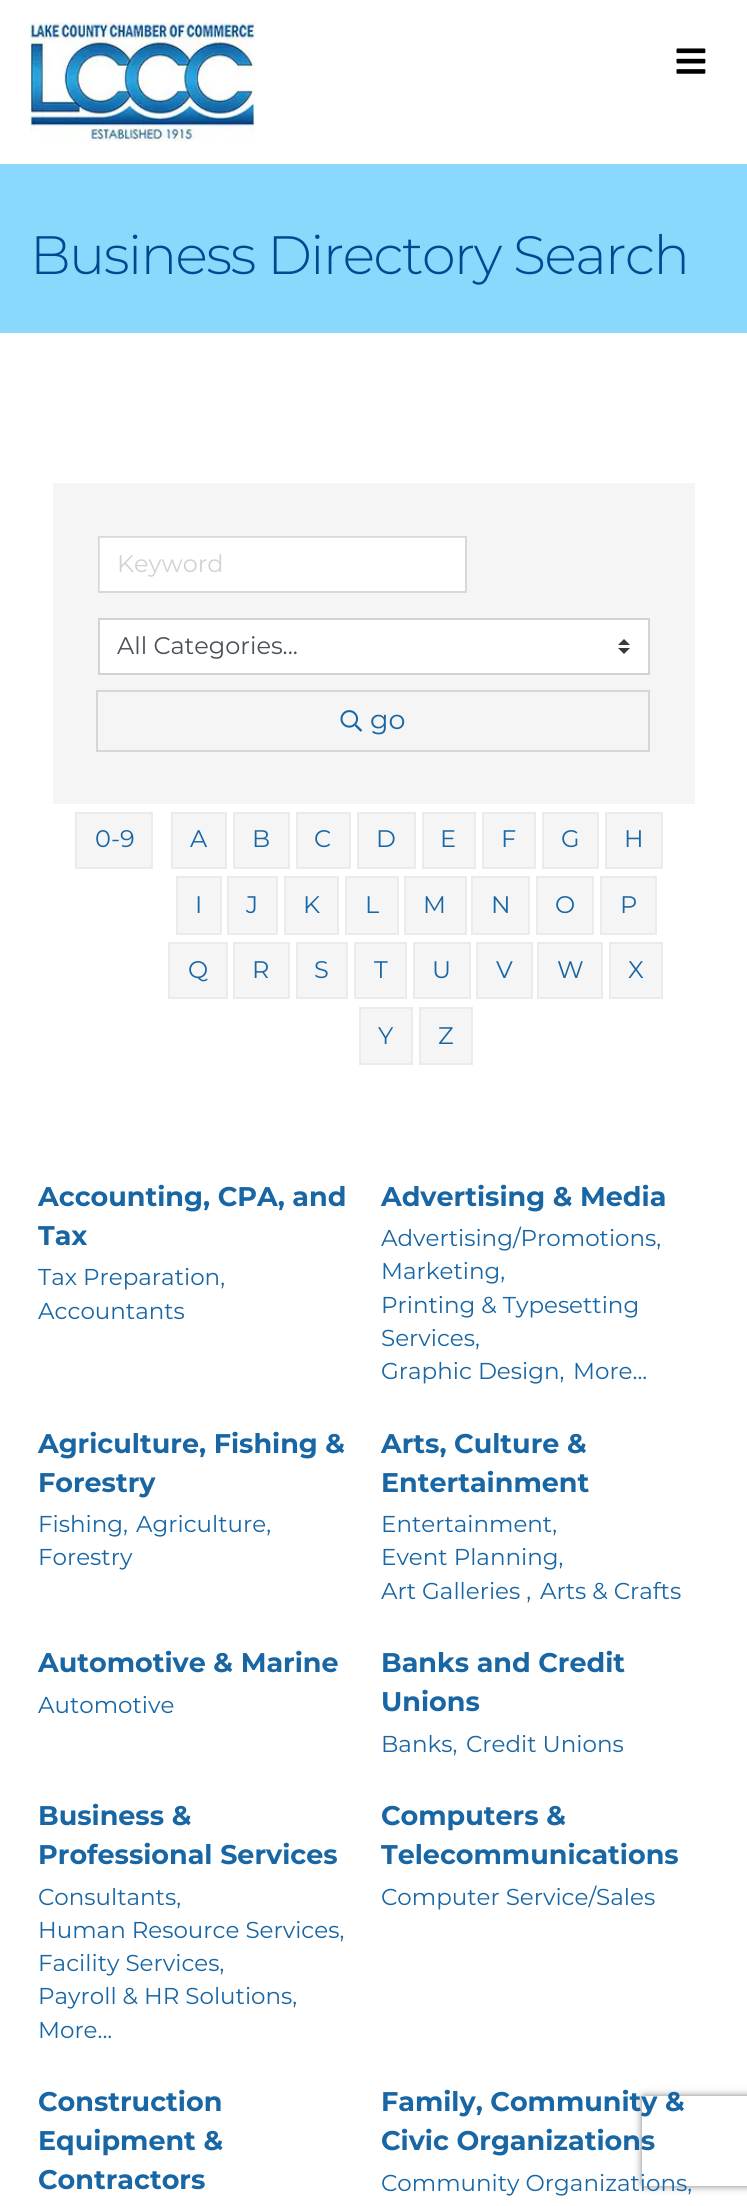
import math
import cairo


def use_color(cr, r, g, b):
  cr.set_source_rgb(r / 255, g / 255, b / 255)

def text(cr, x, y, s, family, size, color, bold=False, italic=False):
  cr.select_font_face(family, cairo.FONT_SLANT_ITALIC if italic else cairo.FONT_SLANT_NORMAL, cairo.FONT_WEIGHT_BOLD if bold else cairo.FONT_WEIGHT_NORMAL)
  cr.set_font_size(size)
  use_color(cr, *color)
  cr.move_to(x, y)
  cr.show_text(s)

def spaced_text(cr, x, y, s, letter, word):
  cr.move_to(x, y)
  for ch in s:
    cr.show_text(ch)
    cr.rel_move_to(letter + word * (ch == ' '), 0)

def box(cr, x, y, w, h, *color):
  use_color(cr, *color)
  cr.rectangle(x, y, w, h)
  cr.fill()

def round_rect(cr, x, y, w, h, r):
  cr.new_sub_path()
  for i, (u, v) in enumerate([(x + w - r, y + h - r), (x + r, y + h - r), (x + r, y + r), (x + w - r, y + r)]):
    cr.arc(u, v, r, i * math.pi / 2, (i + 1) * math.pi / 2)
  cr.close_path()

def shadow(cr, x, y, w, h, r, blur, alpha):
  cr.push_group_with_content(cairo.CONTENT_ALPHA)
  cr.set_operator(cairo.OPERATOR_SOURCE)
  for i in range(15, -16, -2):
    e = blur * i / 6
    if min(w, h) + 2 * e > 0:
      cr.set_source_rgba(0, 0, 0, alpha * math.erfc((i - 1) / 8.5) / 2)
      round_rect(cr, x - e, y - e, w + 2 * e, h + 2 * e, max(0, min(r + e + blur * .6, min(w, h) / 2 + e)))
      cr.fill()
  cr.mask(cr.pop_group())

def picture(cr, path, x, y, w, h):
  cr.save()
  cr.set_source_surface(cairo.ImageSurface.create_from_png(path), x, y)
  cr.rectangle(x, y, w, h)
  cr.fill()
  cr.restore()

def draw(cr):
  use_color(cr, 255, 255, 255)
  cr.paint()
  picture(cr, "img_01.png", 30, 22, 225, 119)
  picture(cr, "img_02.png", 676, 48, 30, 26)
  box(cr, 0, 164, 747, 169, 138, 216, 251)
  box(cr, 53, 483, 642, 321, 245, 245, 245)
  box(cr, 99, 537, 366, 54, 255, 255, 255)
  cr.rectangle(99, 537, 367, 55)
  cr.set_source_rgba(0, 0, 0, 0.12)
  cr.stroke()
  box(cr, 100, 620, 548, 53, 255, 255, 255)
  picture(cr, "img_03.png", 618, 639, 12, 15)
  cr.rectangle(99, 619, 550, 55)
  use_color(cr, 206, 212, 218)
  cr.stroke()
  cr.rectangle(97, 691, 552, 60)
  use_color(cr, 214, 214, 214)
  cr.stroke()
  picture(cr, "img_04.png", 340, 710, 23, 22)
  use_color(cr, 245, 245, 245)
  cr.rectangle(76, 813, 76, 55)
  cr.fill_preserve()
  use_color(cr, 235, 235, 235)
  cr.stroke()
  use_color(cr, 245, 245, 245)
  cr.rectangle(172, 813, 54, 55)
  cr.fill_preserve()
  use_color(cr, 235, 235, 235)
  cr.stroke()
  use_color(cr, 245, 245, 245)
  cr.rectangle(234, 813, 55, 55)
  cr.fill_preserve()
  use_color(cr, 235, 235, 235)
  cr.stroke()
  use_color(cr, 245, 245, 245)
  cr.rectangle(297, 813, 53, 55)
  cr.fill_preserve()
  use_color(cr, 235, 235, 235)
  cr.stroke()
  use_color(cr, 245, 245, 245)
  cr.rectangle(358, 813, 57, 55)
  cr.fill_preserve()
  use_color(cr, 235, 235, 235)
  cr.stroke()
  use_color(cr, 245, 245, 245)
  cr.rectangle(423, 813, 52, 55)
  cr.fill_preserve()
  use_color(cr, 235, 235, 235)
  cr.stroke()
  use_color(cr, 245, 245, 245)
  cr.rectangle(483, 813, 52, 55)
  cr.fill_preserve()
  use_color(cr, 235, 235, 235)
  cr.stroke()
  use_color(cr, 245, 245, 245)
  cr.rectangle(543, 813, 55, 55)
  cr.fill_preserve()
  use_color(cr, 235, 235, 235)
  cr.stroke()
  use_color(cr, 245, 245, 245)
  cr.rectangle(606, 813, 56, 55)
  cr.fill_preserve()
  use_color(cr, 235, 235, 235)
  cr.stroke()
  use_color(cr, 245, 245, 245)
  cr.rectangle(177, 877, 44, 57)
  cr.fill_preserve()
  use_color(cr, 235, 235, 235)
  cr.stroke()
  use_color(cr, 245, 245, 245)
  cr.rectangle(228, 877, 49, 57)
  cr.fill_preserve()
  use_color(cr, 235, 235, 235)
  cr.stroke()
  use_color(cr, 245, 245, 245)
  cr.rectangle(285, 877, 53, 57)
  cr.fill_preserve()
  use_color(cr, 235, 235, 235)
  cr.stroke()
  use_color(cr, 245, 245, 245)
  cr.rectangle(346, 877, 52, 57)
  cr.fill_preserve()
  use_color(cr, 235, 235, 235)
  cr.stroke()
  use_color(cr, 245, 245, 245)
  cr.rectangle(405, 877, 61, 57)
  cr.fill_preserve()
  use_color(cr, 235, 235, 235)
  cr.stroke()
  use_color(cr, 245, 245, 245)
  cr.rectangle(472, 877, 57, 57)
  cr.fill_preserve()
  use_color(cr, 235, 235, 235)
  cr.stroke()
  use_color(cr, 245, 245, 245)
  cr.rectangle(537, 877, 56, 57)
  cr.fill_preserve()
  use_color(cr, 235, 235, 235)
  cr.stroke()
  use_color(cr, 245, 245, 245)
  cr.rectangle(601, 877, 55, 57)
  cr.fill_preserve()
  use_color(cr, 235, 235, 235)
  cr.stroke()
  use_color(cr, 245, 245, 245)
  cr.rectangle(169, 943, 58, 55)
  cr.fill_preserve()
  use_color(cr, 235, 235, 235)
  cr.stroke()
  use_color(cr, 245, 245, 245)
  cr.rectangle(234, 943, 55, 55)
  cr.fill_preserve()
  use_color(cr, 235, 235, 235)
  cr.stroke()
  use_color(cr, 245, 245, 245)
  cr.rectangle(297, 943, 50, 55)
  cr.fill_preserve()
  use_color(cr, 235, 235, 235)
  cr.stroke()
  use_color(cr, 245, 245, 245)
  cr.rectangle(355, 943, 51, 55)
  cr.fill_preserve()
  use_color(cr, 235, 235, 235)
  cr.stroke()
  use_color(cr, 245, 245, 245)
  cr.rectangle(414, 943, 56, 55)
  cr.fill_preserve()
  use_color(cr, 235, 235, 235)
  cr.stroke()
  use_color(cr, 245, 245, 245)
  cr.rectangle(477, 943, 55, 55)
  cr.fill_preserve()
  use_color(cr, 235, 235, 235)
  cr.stroke()
  use_color(cr, 245, 245, 245)
  cr.rectangle(538, 943, 64, 55)
  cr.fill_preserve()
  use_color(cr, 235, 235, 235)
  cr.stroke()
  use_color(cr, 245, 245, 245)
  cr.rectangle(610, 943, 52, 55)
  cr.fill_preserve()
  use_color(cr, 235, 235, 235)
  cr.stroke()
  use_color(cr, 245, 245, 245)
  cr.rectangle(360, 1008, 52, 56)
  cr.fill_preserve()
  use_color(cr, 235, 235, 235)
  cr.stroke()
  use_color(cr, 245, 245, 245)
  cr.rectangle(420, 1008, 52, 56)
  cr.fill_preserve()
  use_color(cr, 235, 235, 235)
  cr.stroke()
  cr.save()
  cr.set_fill_rule(cairo.FILL_RULE_EVEN_ODD)
  cr.new_path()
  cr.move_to(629, 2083)
  cr.line_to(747, 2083)
  cr.line_to(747, 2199)
  cr.line_to(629, 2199)
  cr.close_path()
  cr.move_to(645, 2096)
  cr.line_to(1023, 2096)
  cr.curve_to(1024.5, 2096, 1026, 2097.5, 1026, 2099)
  cr.line_to(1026, 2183)
  cr.curve_to(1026, 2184.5, 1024.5, 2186, 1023, 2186)
  cr.line_to(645, 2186)
  cr.curve_to(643.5, 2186, 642, 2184.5, 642, 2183)
  cr.line_to(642, 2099)
  cr.curve_to(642, 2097.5, 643.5, 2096, 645, 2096)
  cr.close_path()
  cr.clip()
  use_color(cr, 128, 128, 128)
  shadow(cr, 642, 2096, 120, 90, 3, 4, 1)
  cr.restore()
  cr.select_font_face("Montserrat Light")
  cr.set_font_size(54)
  use_color(cr, 0, 72, 146)
  spaced_text(cr, 30, 274, "Business Directory Search", -1.5, 0)
  text(cr, 117, 572, "Keyword", "Montserrat", 24, (210, 210, 210))
  text(cr, 117, 654, "All Categories...", "Montserrat", 24, (73, 80, 87))
  text(cr, 370, 729, "go", "Montserrat", 27, (24, 102, 164))
  text(cr, 95, 847, "0-9", "Montserrat", 24, (24, 102, 164))
  text(cr, 190, 847, "A", "Montserrat", 24, (24, 102, 164))
  text(cr, 252, 847, "B", "Montserrat", 24, (24, 102, 164))
  text(cr, 314, 847, "C", "Montserrat", 24, (24, 102, 164))
  text(cr, 376, 847, "D", "Montserrat", 24, (24, 102, 164))
  text(cr, 440, 847, "E", "Montserrat", 24, (24, 102, 164))
  text(cr, 501, 847, "F", "Montserrat", 24, (24, 102, 164))
  text(cr, 561, 847, "G", "Montserrat", 24, (24, 102, 164))
  text(cr, 624, 847, "H", "Montserrat", 24, (24, 102, 164))
  text(cr, 195, 913, "I", "Montserrat", 24, (24, 102, 164))
  text(cr, 246, 913, "J", "Montserrat", 24, (24, 102, 164))
  text(cr, 303, 913, "K", "Montserrat", 24, (24, 102, 164))
  text(cr, 365, 913, "L", "Montserrat", 24, (24, 102, 164))
  text(cr, 423, 913, "M", "Montserrat", 24, (24, 102, 164))
  text(cr, 491, 913, "N", "Montserrat", 24, (24, 102, 164))
  text(cr, 555, 913, "O", "Montserrat", 24, (24, 102, 164))
  text(cr, 620, 913, "P", "Montserrat", 24, (24, 102, 164))
  text(cr, 188, 978, "Q", "Montserrat", 24, (24, 102, 164))
  text(cr, 252, 978, "R", "Montserrat", 24, (24, 102, 164))
  text(cr, 314, 978, "S", "Montserrat", 24, (24, 102, 164))
  text(cr, 374, 978, "T", "Montserrat", 24, (24, 102, 164))
  text(cr, 432, 978, "U", "Montserrat", 24, (24, 102, 164))
  text(cr, 496, 978, "V", "Montserrat", 24, (24, 102, 164))
  text(cr, 557, 978, "W", "Montserrat", 24, (24, 102, 164))
  text(cr, 628, 978, "X", "Montserrat", 24, (24, 102, 164))
  text(cr, 378, 1044, "Y", "Montserrat", 24, (24, 102, 164))
  text(cr, 438, 1044, "Z", "Montserrat", 24, (24, 102, 164))
  text(cr, 38, 1206, "Accounting, CPA, and", "Montserrat", 27, (24, 102, 164), bold=True)
  text(cr, 38, 1245, "Tax", "Montserrat", 27, (24, 102, 164), bold=True)
  text(cr, 38, 1285, "Tax Preparation,", "Montserrat", 23, (24, 102, 164))
  text(cr, 38, 1319, "Accountants", "Montserrat", 23, (24, 102, 164))
  text(cr, 381, 1206, "Advertising & Media", "Montserrat", 27, (24, 102, 164), bold=True)
  text(cr, 381, 1246, "Advertising/Promotions,", "Montserrat", 23, (24, 102, 164))
  text(cr, 381, 1279, "Marketing,", "Montserrat", 23, (24, 102, 164))
  text(cr, 381, 1313, "Printing & Typesetting", "Montserrat", 23, (24, 102, 164))
  text(cr, 381, 1346, "Services,", "Montserrat", 23, (24, 102, 164))
  text(cr, 381, 1379, "Graphic Design,", "Montserrat", 23, (24, 102, 164))
  text(cr, 573, 1379, "More...", "Montserrat", 23, (24, 102, 164))
  text(cr, 38, 1453, "Agriculture, Fishing &", "Montserrat", 27, (24, 102, 164), bold=True)
  text(cr, 38, 1492, "Forestry", "Montserrat", 27, (24, 102, 164), bold=True)
  text(cr, 38, 1532, "Fishing,", "Montserrat", 23, (24, 102, 164))
  text(cr, 136, 1532, "Agriculture,", "Montserrat", 23, (24, 102, 164))
  text(cr, 38, 1565, "Forestry", "Montserrat", 23, (24, 102, 164))
  text(cr, 381, 1453, "Arts, Culture &", "Montserrat", 27, (24, 102, 164), bold=True)
  text(cr, 381, 1492, "Entertainment", "Montserrat", 27, (24, 102, 164), bold=True)
  text(cr, 381, 1532, "Entertainment,", "Montserrat", 23, (24, 102, 164))
  text(cr, 381, 1565, "Event Planning,", "Montserrat", 23, (24, 102, 164))
  text(cr, 381, 1599, "Art Galleries ,", "Montserrat", 23, (24, 102, 164))
  text(cr, 540, 1599, "Arts & Crafts", "Montserrat", 23, (24, 102, 164))
  text(cr, 38, 1672, "Automotive & Marine", "Montserrat", 27, (24, 102, 164), bold=True)
  text(cr, 38, 1713, "Automotive", "Montserrat", 23, (24, 102, 164))
  text(cr, 381, 1672, "Banks and Credit", "Montserrat", 27, (24, 102, 164), bold=True)
  text(cr, 381, 1711, "Unions", "Montserrat", 27, (24, 102, 164), bold=True)
  text(cr, 381, 1752, "Banks,", "Montserrat", 23, (24, 102, 164))
  text(cr, 466, 1752, "Credit Unions", "Montserrat", 23, (24, 102, 164))
  text(cr, 38, 1825, "Business &", "Montserrat", 27, (24, 102, 164), bold=True)
  text(cr, 38, 1864, "Professional Services", "Montserrat", 27, (24, 102, 164), bold=True)
  text(cr, 38, 1905, "Consultants,", "Montserrat", 23, (24, 102, 164))
  text(cr, 38, 1938, "Human Resource Services,", "Montserrat", 23, (24, 102, 164))
  text(cr, 38, 1971, "Facility Services,", "Montserrat", 23, (24, 102, 164))
  text(cr, 38, 2004, "Payroll & HR Solutions,", "Montserrat", 23, (24, 102, 164))
  text(cr, 38, 2038, "More...", "Montserrat", 23, (24, 102, 164))
  text(cr, 381, 1825, "Computers &", "Montserrat", 27, (24, 102, 164), bold=True)
  text(cr, 381, 1864, "Telecommunications", "Montserrat", 27, (24, 102, 164), bold=True)
  text(cr, 381, 1905, "Computer Service/Sales", "Montserrat", 23, (24, 102, 164))
  text(cr, 38, 2111, "Construction", "Montserrat", 27, (24, 102, 164), bold=True)
  text(cr, 38, 2150, "Equipment &", "Montserrat", 27, (24, 102, 164), bold=True)
  text(cr, 38, 2189, "Contractors", "Montserrat", 27, (24, 102, 164), bold=True)
  text(cr, 381, 2111, "Family, Community &", "Montserrat", 27, (24, 102, 164), bold=True)
  text(cr, 381, 2150, "Civic Organizations", "Montserrat", 27, (24, 102, 164), bold=True)
  text(cr, 381, 2191, "Community Organizations,", "Montserrat", 23, (24, 102, 164))


surface = cairo.ImageSurface(cairo.FORMAT_RGB24, 747, 2206)
cr = cairo.Context(surface)
options = cairo.FontOptions()
options.set_hint_metrics(cairo.HINT_METRICS_OFF)
options.set_hint_style(cairo.HINT_STYLE_NONE)
cr.set_font_options(options)
cr.set_miter_limit(4)
draw(cr)
surface.write_to_png("out.png")
